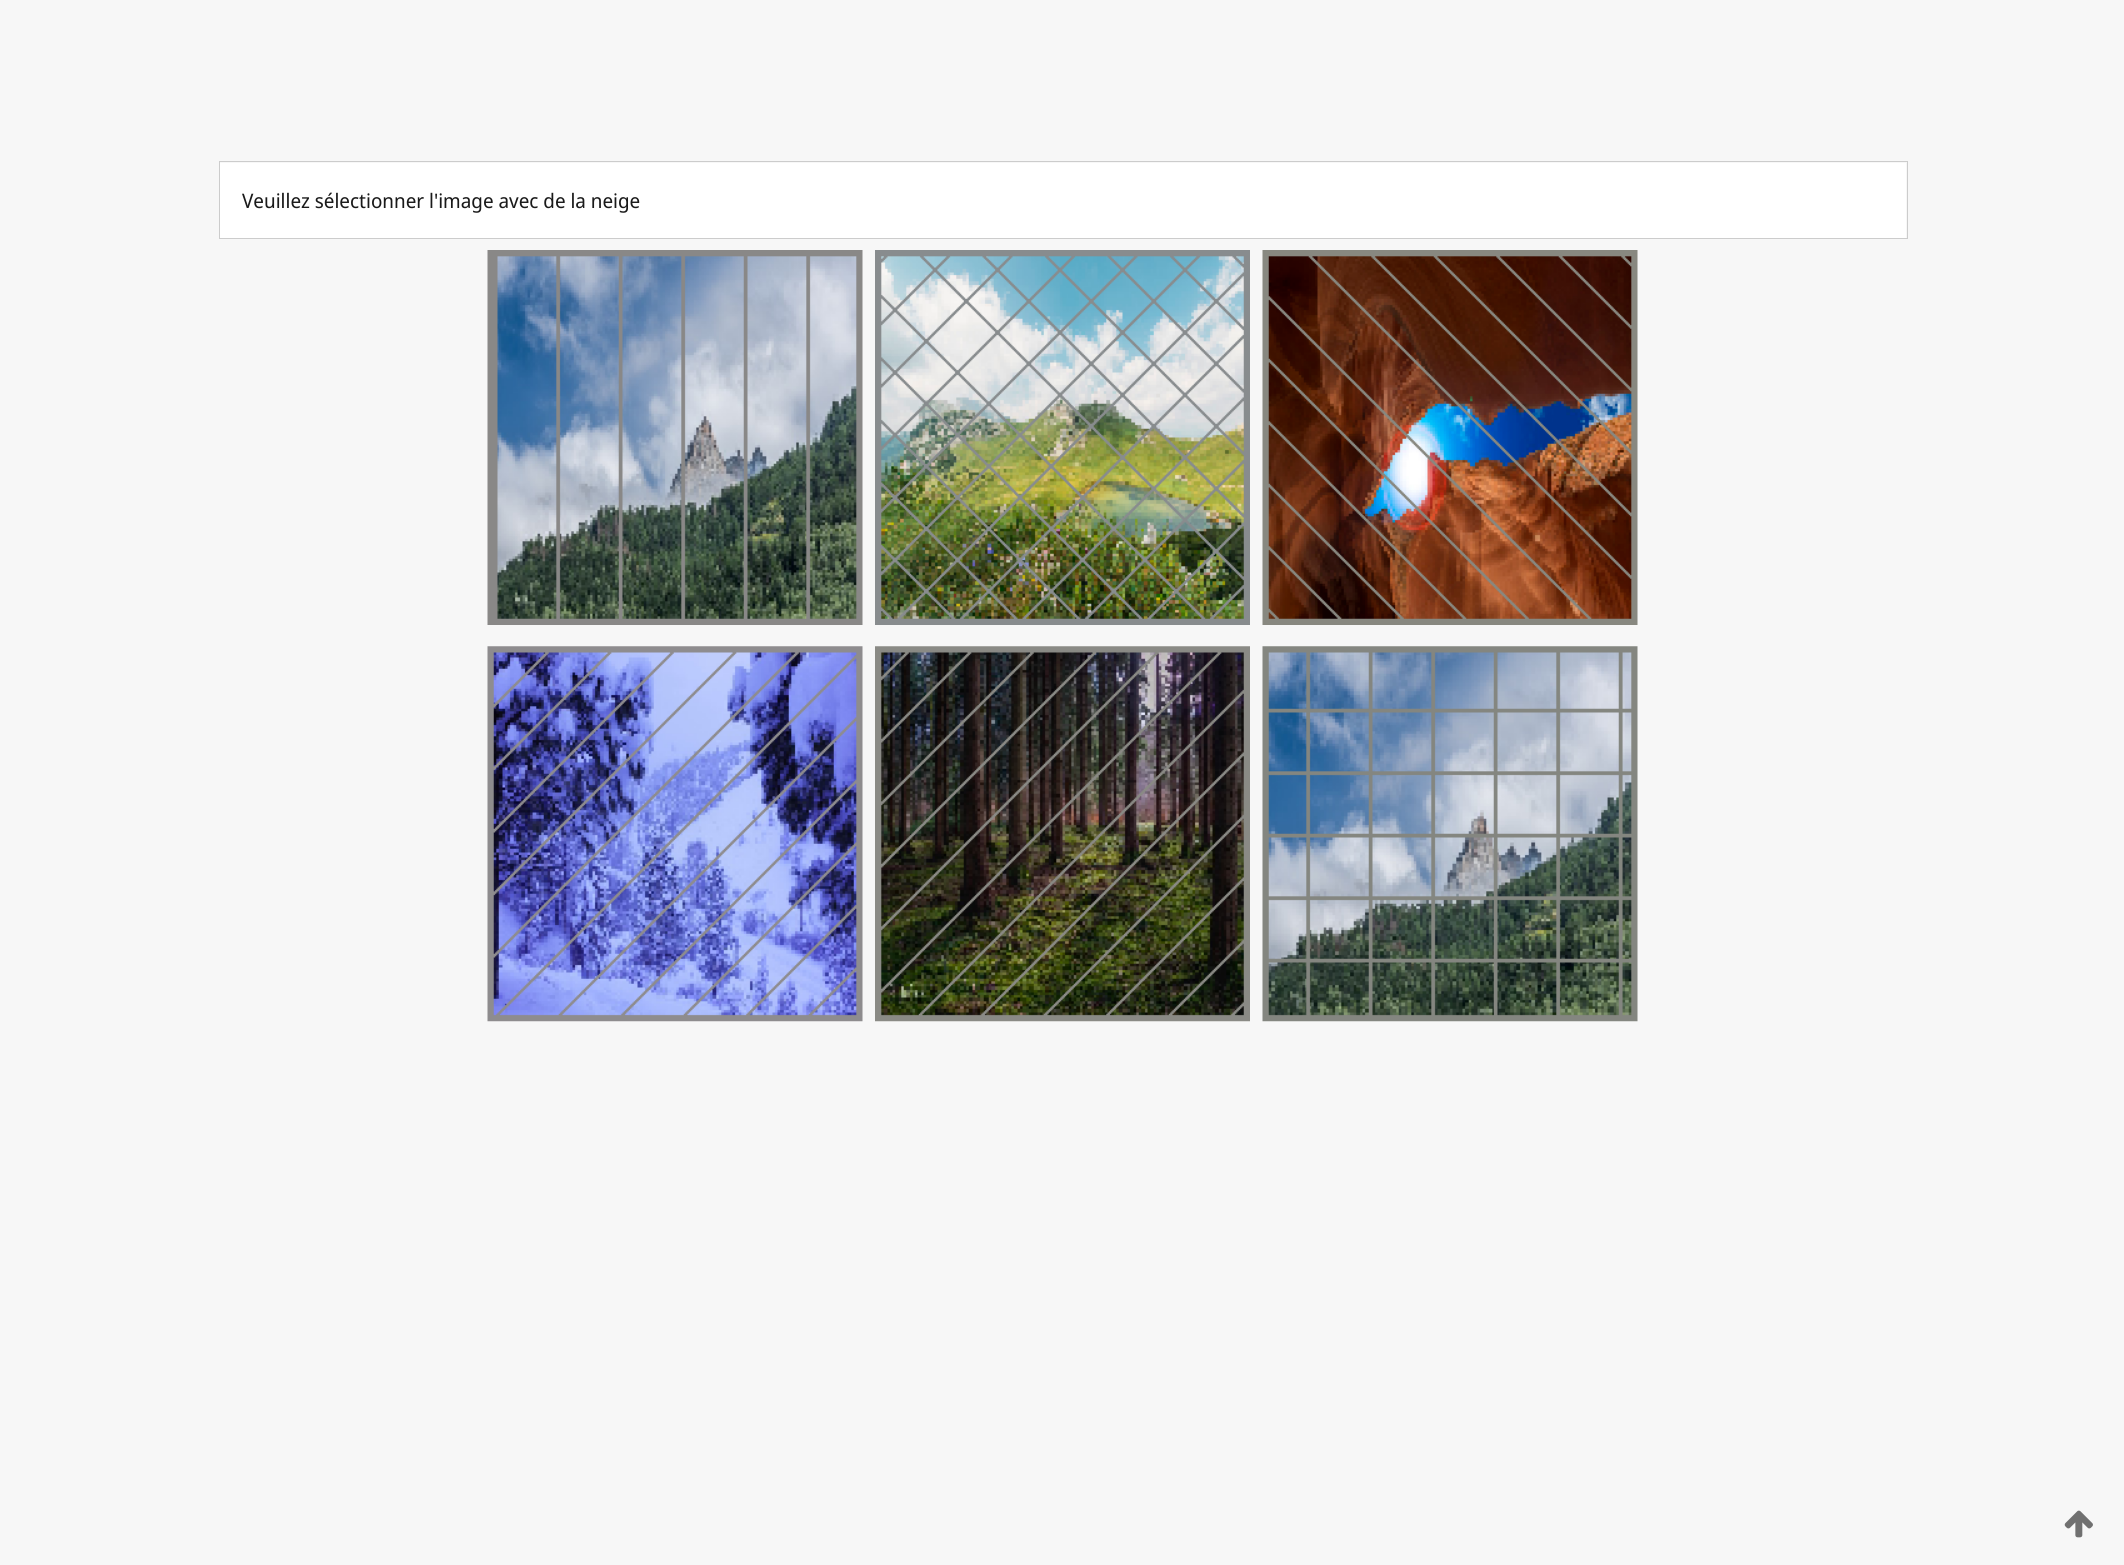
import math
import cairo


def use_color(cr, r, g, b):
  cr.set_source_rgb(r / 255, g / 255, b / 255)

def text(cr, x, y, s, family, size, color, bold=False, italic=False):
  cr.select_font_face(family, cairo.FONT_SLANT_ITALIC if italic else cairo.FONT_SLANT_NORMAL, cairo.FONT_WEIGHT_BOLD if bold else cairo.FONT_WEIGHT_NORMAL)
  cr.set_font_size(size)
  use_color(cr, *color)
  cr.move_to(x, y)
  cr.show_text(s)

def box(cr, x, y, w, h, *color):
  use_color(cr, *color)
  cr.rectangle(x, y, w, h)
  cr.fill()

def picture(cr, path, x, y, w, h):
  cr.save()
  cr.set_source_surface(cairo.ImageSurface.create_from_png(path), x, y)
  cr.rectangle(x, y, w, h)
  cr.fill()
  cr.restore()

def draw(cr):
  use_color(cr, 247, 247, 247)
  cr.paint()
  box(cr, 220, 163, 1686, 75, 255, 255, 255)
  cr.rectangle(219.5, 161.5, 1688, 77)
  use_color(cr, 204, 204, 204)
  cr.set_line_width(1)
  cr.stroke()
  picture(cr, "img_01.png", 487, 250, 376, 375)
  picture(cr, "img_02.png", 875, 250, 375, 375)
  picture(cr, "img_03.png", 1262, 250, 376, 375)
  picture(cr, "img_04.png", 487, 646, 376, 376)
  picture(cr, "img_05.png", 875, 646, 375, 376)
  picture(cr, "img_06.png", 1262, 646, 376, 376)
  picture(cr, "img_07.png", 2064, 1510, 29, 28)
  text(cr, 242, 208, "Veuillez sélectionner l'image avec de la neige", "Noto Sans Display", 20, (26, 26, 26))


surface = cairo.ImageSurface(cairo.FORMAT_RGB24, 2124, 1565)
cr = cairo.Context(surface)
options = cairo.FontOptions()
options.set_hint_metrics(cairo.HINT_METRICS_OFF)
options.set_hint_style(cairo.HINT_STYLE_NONE)
cr.set_font_options(options)
cr.set_miter_limit(4)
draw(cr)
surface.write_to_png("out.png")
